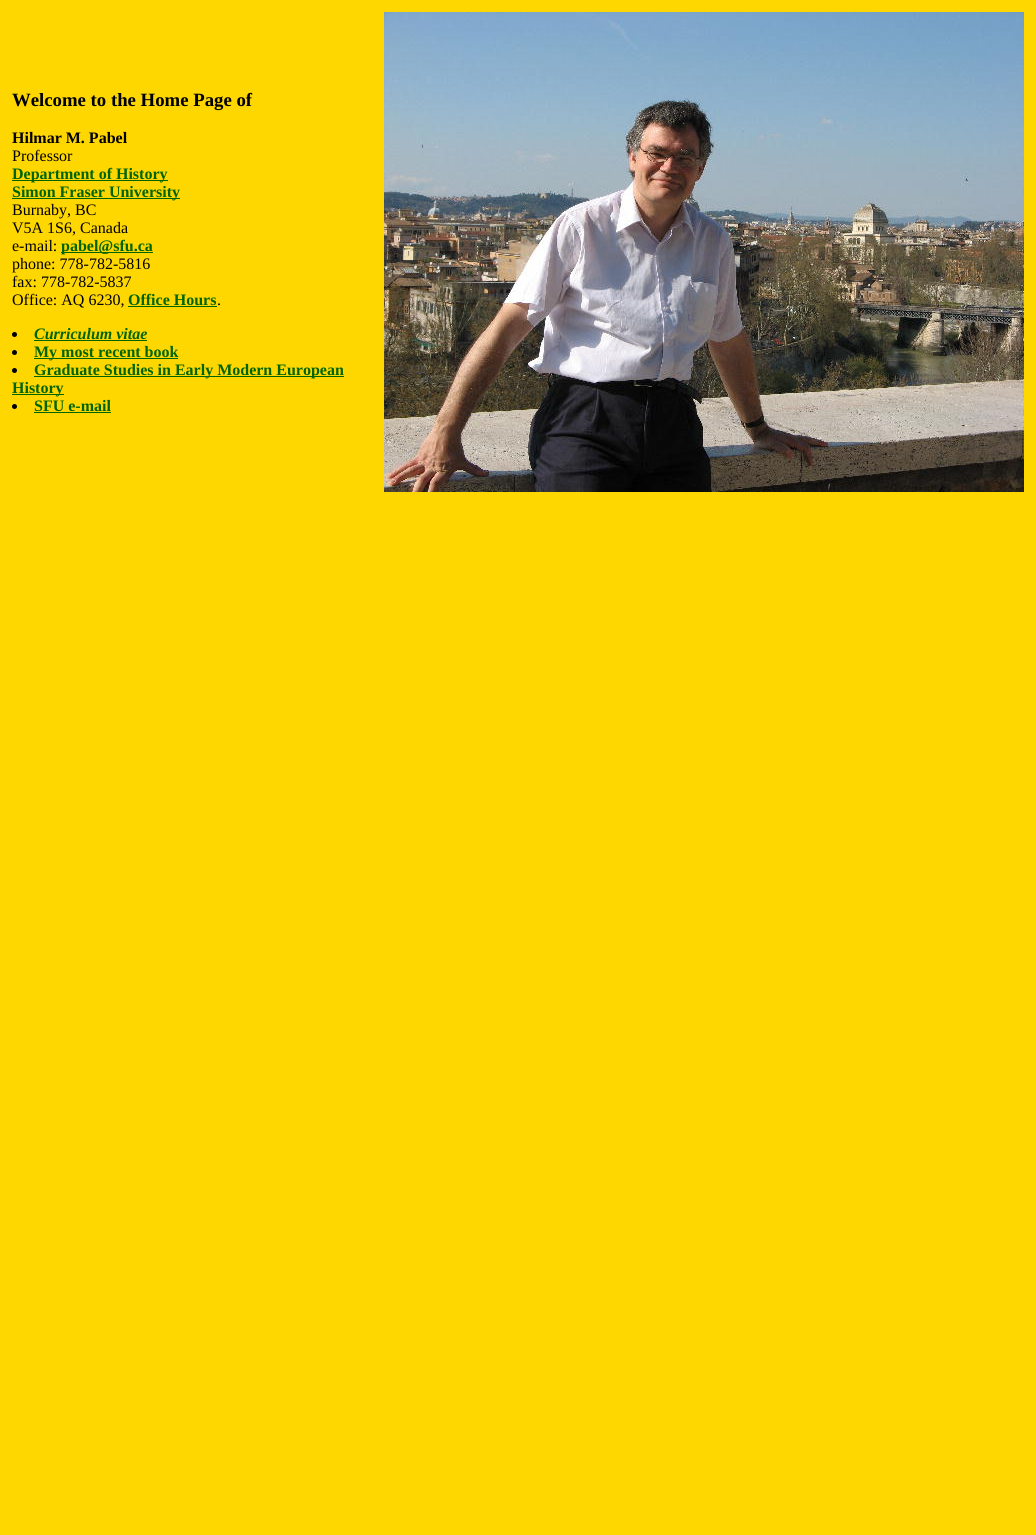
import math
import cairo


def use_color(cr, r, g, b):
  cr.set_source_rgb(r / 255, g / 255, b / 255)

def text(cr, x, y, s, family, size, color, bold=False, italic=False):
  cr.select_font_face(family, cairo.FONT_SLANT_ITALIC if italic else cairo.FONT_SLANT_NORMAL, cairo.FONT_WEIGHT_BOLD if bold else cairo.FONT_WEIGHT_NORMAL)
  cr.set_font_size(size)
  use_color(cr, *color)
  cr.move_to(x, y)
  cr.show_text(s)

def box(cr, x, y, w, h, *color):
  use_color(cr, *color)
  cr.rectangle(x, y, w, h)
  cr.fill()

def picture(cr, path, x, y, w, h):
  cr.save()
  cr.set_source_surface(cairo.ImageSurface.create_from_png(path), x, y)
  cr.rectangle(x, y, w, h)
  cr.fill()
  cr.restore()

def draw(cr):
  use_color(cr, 255, 215, 0)
  cr.paint()
  box(cr, 12, 180, 156, 1, 0, 100, 0)
  box(cr, 12, 198, 168, 1, 0, 100, 0)
  box(cr, 61, 252, 92, 1, 0, 100, 0)
  box(cr, 128, 306, 89, 1, 0, 100, 0)
  use_color(cr, 0, 0, 0)
  cr.arc(14.5, 334.5, 2.5, 0, 2 * math.pi)
  cr.fill()
  box(cr, 34, 340, 113, 1, 0, 100, 0)
  use_color(cr, 0, 0, 0)
  cr.arc(14.5, 352.5, 2.5, 0, 2 * math.pi)
  cr.fill()
  box(cr, 34, 358, 144, 1, 0, 100, 0)
  use_color(cr, 0, 0, 0)
  cr.arc(14.5, 370.5, 2.5, 0, 2 * math.pi)
  cr.fill()
  box(cr, 34, 376, 310, 1, 0, 100, 0)
  box(cr, 12, 394, 52, 1, 0, 100, 0)
  use_color(cr, 0, 0, 0)
  cr.arc(14.5, 406.5, 2.5, 0, 2 * math.pi)
  cr.fill()
  box(cr, 34, 412, 77, 1, 0, 100, 0)
  picture(cr, "img_01.png", 384, 12, 640, 480)
  text(cr, 12, 106, "Welcome to the Home Page of", "Liberation Serif", 18.75, (0, 0, 0), bold=True)
  text(cr, 12, 143, "Hilmar M. Pabel", "Liberation Serif", 16, (0, 0, 0), bold=True)
  text(cr, 12, 161, "Professor", "Liberation Serif", 16, (0, 0, 0))
  text(cr, 12, 179, "Department of History", "Liberation Serif", 16, (0, 100, 0), bold=True)
  text(cr, 12, 197, "Simon Fraser University", "Liberation Serif", 16, (0, 100, 0), bold=True)
  text(cr, 12, 215, "Burnaby, BC", "Liberation Serif", 16, (0, 0, 0))
  text(cr, 12, 233, "V5A 1S6, Canada", "Liberation Serif", 16, (0, 0, 0))
  text(cr, 12, 251, "e-mail:", "Liberation Serif", 16, (0, 0, 0))
  text(cr, 61, 251, "pabel@sfu.ca", "Liberation Serif", 16, (0, 100, 0), bold=True)
  text(cr, 12, 269, "phone: 778-782-5816", "Liberation Serif", 16, (0, 0, 0))
  text(cr, 12, 287, "fax: 778-782-5837", "Liberation Serif", 16, (0, 0, 0))
  text(cr, 12, 305, "Office: AQ 6230,", "Liberation Serif", 16, (0, 0, 0))
  text(cr, 128, 305, "Office Hours", "Liberation Serif", 16, (0, 100, 0), bold=True)
  text(cr, 217, 305, ".", "Liberation Serif", 16, (0, 0, 0))
  text(cr, 34, 339, "Curriculum vitae", "Liberation Serif", 16, (0, 100, 0), bold=True, italic=True)
  text(cr, 34, 357, "My most recent book", "Liberation Serif", 16, (0, 100, 0), bold=True)
  text(cr, 34, 375, "Graduate Studies in Early Modern European", "Liberation Serif", 16, (0, 100, 0), bold=True)
  text(cr, 12, 393, "History", "Liberation Serif", 16, (0, 100, 0), bold=True)
  text(cr, 34, 411, "SFU e-mail", "Liberation Serif", 16, (0, 100, 0), bold=True)


surface = cairo.ImageSurface(cairo.FORMAT_RGB24, 1036, 1535)
cr = cairo.Context(surface)
options = cairo.FontOptions()
options.set_hint_metrics(cairo.HINT_METRICS_OFF)
options.set_hint_style(cairo.HINT_STYLE_NONE)
cr.set_font_options(options)
cr.set_miter_limit(4)
draw(cr)
surface.write_to_png("out.png")
